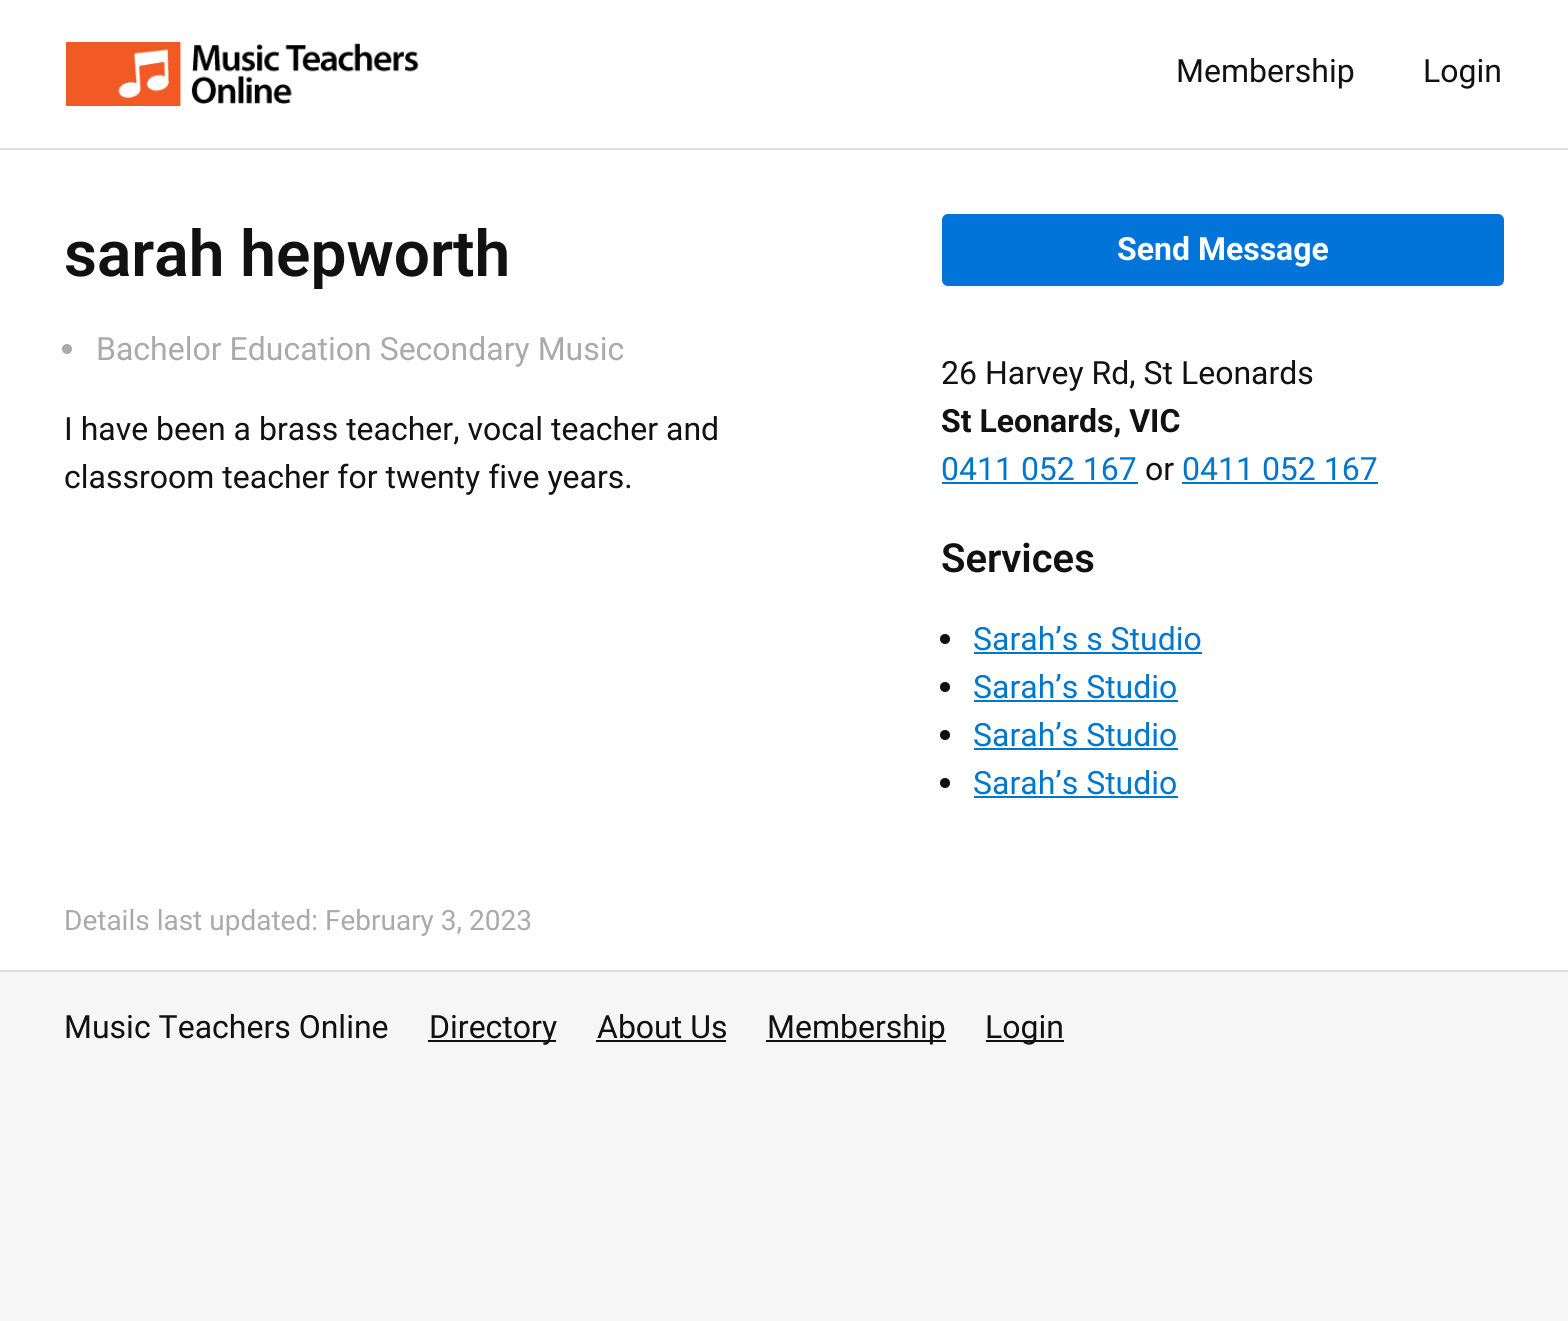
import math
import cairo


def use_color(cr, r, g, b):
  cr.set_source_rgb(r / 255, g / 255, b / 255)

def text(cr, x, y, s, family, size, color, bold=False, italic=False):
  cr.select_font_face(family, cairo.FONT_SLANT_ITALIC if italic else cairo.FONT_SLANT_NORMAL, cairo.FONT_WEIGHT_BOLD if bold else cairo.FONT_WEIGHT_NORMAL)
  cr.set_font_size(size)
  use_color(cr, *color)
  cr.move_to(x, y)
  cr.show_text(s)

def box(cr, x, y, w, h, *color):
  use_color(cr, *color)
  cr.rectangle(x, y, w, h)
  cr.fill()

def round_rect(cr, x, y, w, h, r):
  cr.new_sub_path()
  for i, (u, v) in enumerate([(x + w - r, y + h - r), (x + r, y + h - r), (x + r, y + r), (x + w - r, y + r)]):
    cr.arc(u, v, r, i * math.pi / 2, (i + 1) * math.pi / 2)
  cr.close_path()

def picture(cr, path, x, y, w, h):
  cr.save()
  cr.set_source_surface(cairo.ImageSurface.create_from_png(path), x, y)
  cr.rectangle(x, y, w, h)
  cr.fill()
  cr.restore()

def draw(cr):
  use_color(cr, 246, 246, 246)
  cr.paint()
  box(cr, 0, 0, 1568, 148, 255, 255, 255)
  box(cr, 0, 148, 1568, 2, 221, 221, 221)
  picture(cr, "img_01.png", 66, 42, 353, 64)
  box(cr, 0, 150, 1568, 820, 255, 255, 255)
  box(cr, 0, 970, 1568, 2, 221, 221, 221)
  use_color(cr, 170, 170, 170)
  cr.arc(67, 349, 5, 0, 2 * math.pi)
  cr.fill()
  use_color(cr, 0, 116, 217)
  round_rect(cr, 942, 214, 562, 72, 6)
  cr.fill()
  box(cr, 942, 482, 196, 2, 0, 119, 204)
  box(cr, 1182, 482, 196, 2, 0, 119, 204)
  use_color(cr, 17, 17, 17)
  cr.arc(945, 639, 5, 0, 2 * math.pi)
  cr.fill()
  box(cr, 974, 652, 228, 2, 0, 119, 204)
  use_color(cr, 17, 17, 17)
  cr.arc(945, 687, 5, 0, 2 * math.pi)
  cr.fill()
  box(cr, 974, 700, 204, 2, 0, 119, 204)
  use_color(cr, 17, 17, 17)
  cr.arc(945, 735, 5, 0, 2 * math.pi)
  cr.fill()
  box(cr, 974, 748, 204, 2, 0, 119, 204)
  use_color(cr, 17, 17, 17)
  cr.arc(945, 783, 5, 0, 2 * math.pi)
  cr.fill()
  box(cr, 974, 796, 204, 2, 0, 119, 204)
  box(cr, 428, 1040, 128, 2, 17, 17, 17)
  box(cr, 596, 1040, 130, 2, 17, 17, 17)
  box(cr, 766, 1040, 180, 2, 17, 17, 17)
  box(cr, 986, 1040, 78, 2, 17, 17, 17)
  text(cr, 1176, 82, "Membership", "Roboto", 32, (17, 17, 17))
  text(cr, 1423, 82, "Login", "Roboto", 32, (17, 17, 17))
  text(cr, 64, 276, "sarah hepworth", "Roboto SemiBold", 64, (17, 17, 17))
  text(cr, 96, 360, "Bachelor Education Secondary Music", "Roboto", 32, (170, 170, 170))
  text(cr, 64, 440, "I have been a brass teacher, vocal teacher and", "Roboto", 32, (17, 17, 17))
  text(cr, 64, 488, "classroom teacher for twenty five years.", "Roboto", 32, (17, 17, 17))
  text(cr, 1117, 260, "Send Message", "Roboto", 32, (255, 255, 255), bold=True)
  text(cr, 941, 384, "26 Harvey Rd, St Leonards", "Roboto", 32, (17, 17, 17))
  text(cr, 941, 432, "St Leonards, VIC", "Roboto", 32, (17, 17, 17), bold=True)
  text(cr, 941, 480, "0411 052 167", "Roboto", 32, (0, 119, 204))
  text(cr, 1145, 480, "or", "Roboto", 32, (17, 17, 17))
  text(cr, 1182, 480, "0411 052 167", "Roboto", 32, (0, 119, 204))
  text(cr, 941, 572, "Services", "Roboto SemiBold", 40, (17, 17, 17))
  text(cr, 973, 650, "Sarah’s s Studio", "Roboto", 32, (0, 119, 204))
  text(cr, 973, 698, "Sarah’s Studio", "Roboto", 32, (0, 119, 204))
  text(cr, 973, 746, "Sarah’s Studio", "Roboto", 32, (0, 119, 204))
  text(cr, 973, 794, "Sarah’s Studio", "Roboto", 32, (0, 119, 204))
  text(cr, 64, 930, "Details last updated: February 3, 2023", "Roboto", 28, (170, 170, 170))
  text(cr, 64, 1038, "Music Teachers Online", "Roboto", 32, (17, 17, 17))
  text(cr, 429, 1038, "Directory", "Roboto", 32, (17, 17, 17))
  text(cr, 597, 1038, "About Us", "Roboto", 32, (17, 17, 17))
  text(cr, 767, 1038, "Membership", "Roboto", 32, (17, 17, 17))
  text(cr, 985, 1038, "Login", "Roboto", 32, (17, 17, 17))


surface = cairo.ImageSurface(cairo.FORMAT_RGB24, 1568, 1321)
cr = cairo.Context(surface)
options = cairo.FontOptions()
options.set_hint_metrics(cairo.HINT_METRICS_OFF)
options.set_hint_style(cairo.HINT_STYLE_NONE)
cr.set_font_options(options)
cr.set_miter_limit(4)
draw(cr)
surface.write_to_png("out.png")
